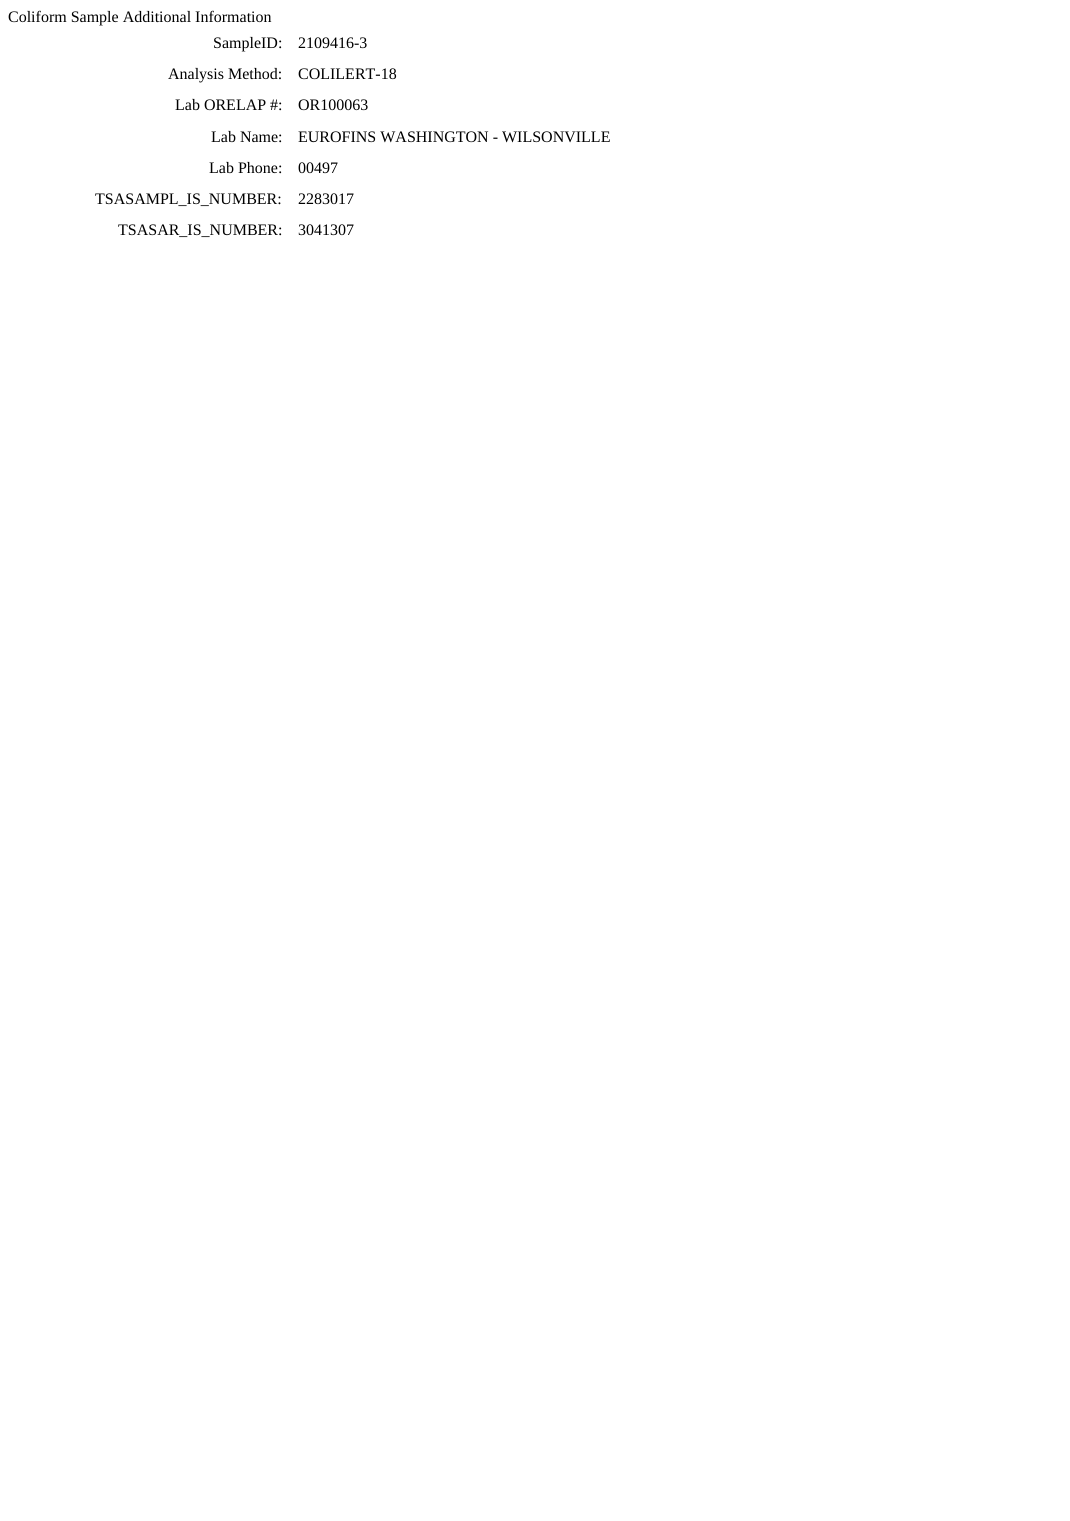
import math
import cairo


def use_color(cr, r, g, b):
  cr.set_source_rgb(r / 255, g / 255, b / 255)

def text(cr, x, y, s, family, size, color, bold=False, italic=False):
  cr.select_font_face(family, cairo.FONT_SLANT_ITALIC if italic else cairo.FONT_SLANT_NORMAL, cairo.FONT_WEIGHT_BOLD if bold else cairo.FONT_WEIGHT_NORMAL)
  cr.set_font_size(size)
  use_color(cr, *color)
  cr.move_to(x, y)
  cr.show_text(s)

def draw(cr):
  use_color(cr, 255, 255, 255)
  cr.paint()
  text(cr, 8, 22, "Coliform Sample Additional Information", "Liberation Serif", 16, (0, 0, 0))
  text(cr, 213, 48, "SampleID:", "Liberation Serif", 16, (0, 0, 0))
  text(cr, 298, 48, "2109416-3", "Liberation Serif", 16, (0, 0, 0))
  text(cr, 168, 79, "Analysis Method:", "Liberation Serif", 16, (0, 0, 0))
  text(cr, 298, 79, "COLILERT-18", "Liberation Serif", 16, (0, 0, 0))
  text(cr, 175, 110, "Lab ORELAP #:", "Liberation Serif", 16, (0, 0, 0))
  text(cr, 298, 110, "OR100063", "Liberation Serif", 16, (0, 0, 0))
  text(cr, 211, 142, "Lab Name:", "Liberation Serif", 16, (0, 0, 0))
  text(cr, 298, 142, "EUROFINS WASHINGTON - WILSONVILLE", "Liberation Serif", 16, (0, 0, 0))
  text(cr, 209, 173, "Lab Phone:", "Liberation Serif", 16, (0, 0, 0))
  text(cr, 298, 173, "00497", "Liberation Serif", 16, (0, 0, 0))
  text(cr, 95, 204, "TSASAMPL_IS_NUMBER:", "Liberation Serif", 16, (0, 0, 0))
  text(cr, 298, 204, "2283017", "Liberation Serif", 16, (0, 0, 0))
  text(cr, 118, 235, "TSASAR_IS_NUMBER:", "Liberation Serif", 16, (0, 0, 0))
  text(cr, 298, 235, "3041307", "Liberation Serif", 16, (0, 0, 0))


surface = cairo.ImageSurface(cairo.FORMAT_RGB24, 1070, 1521)
cr = cairo.Context(surface)
options = cairo.FontOptions()
options.set_hint_metrics(cairo.HINT_METRICS_OFF)
options.set_hint_style(cairo.HINT_STYLE_NONE)
cr.set_font_options(options)
cr.set_miter_limit(4)
draw(cr)
surface.write_to_png("out.png")
